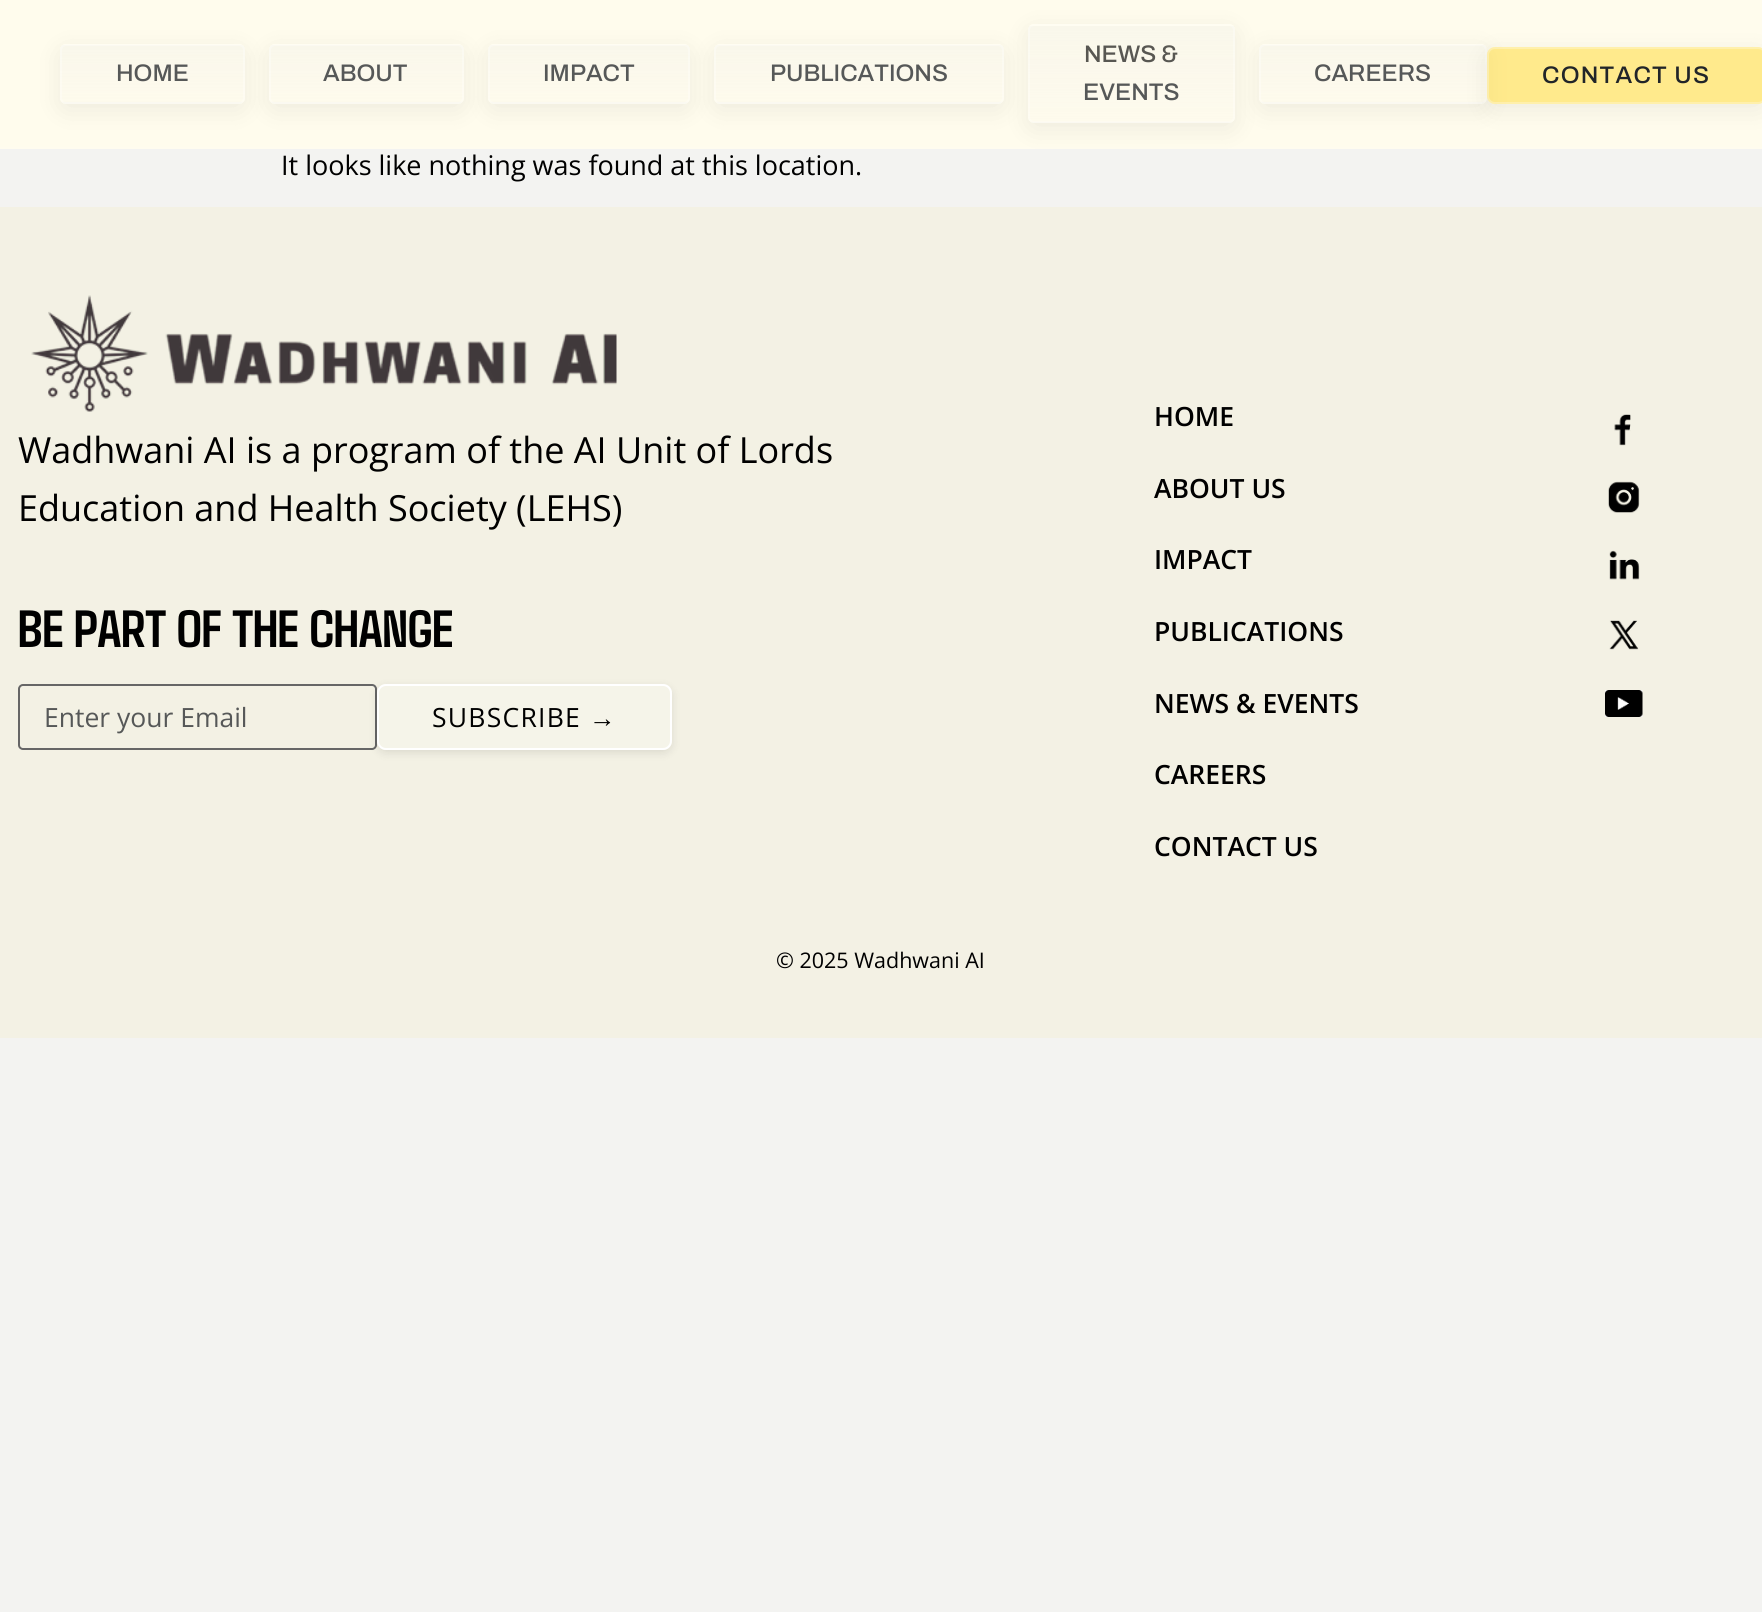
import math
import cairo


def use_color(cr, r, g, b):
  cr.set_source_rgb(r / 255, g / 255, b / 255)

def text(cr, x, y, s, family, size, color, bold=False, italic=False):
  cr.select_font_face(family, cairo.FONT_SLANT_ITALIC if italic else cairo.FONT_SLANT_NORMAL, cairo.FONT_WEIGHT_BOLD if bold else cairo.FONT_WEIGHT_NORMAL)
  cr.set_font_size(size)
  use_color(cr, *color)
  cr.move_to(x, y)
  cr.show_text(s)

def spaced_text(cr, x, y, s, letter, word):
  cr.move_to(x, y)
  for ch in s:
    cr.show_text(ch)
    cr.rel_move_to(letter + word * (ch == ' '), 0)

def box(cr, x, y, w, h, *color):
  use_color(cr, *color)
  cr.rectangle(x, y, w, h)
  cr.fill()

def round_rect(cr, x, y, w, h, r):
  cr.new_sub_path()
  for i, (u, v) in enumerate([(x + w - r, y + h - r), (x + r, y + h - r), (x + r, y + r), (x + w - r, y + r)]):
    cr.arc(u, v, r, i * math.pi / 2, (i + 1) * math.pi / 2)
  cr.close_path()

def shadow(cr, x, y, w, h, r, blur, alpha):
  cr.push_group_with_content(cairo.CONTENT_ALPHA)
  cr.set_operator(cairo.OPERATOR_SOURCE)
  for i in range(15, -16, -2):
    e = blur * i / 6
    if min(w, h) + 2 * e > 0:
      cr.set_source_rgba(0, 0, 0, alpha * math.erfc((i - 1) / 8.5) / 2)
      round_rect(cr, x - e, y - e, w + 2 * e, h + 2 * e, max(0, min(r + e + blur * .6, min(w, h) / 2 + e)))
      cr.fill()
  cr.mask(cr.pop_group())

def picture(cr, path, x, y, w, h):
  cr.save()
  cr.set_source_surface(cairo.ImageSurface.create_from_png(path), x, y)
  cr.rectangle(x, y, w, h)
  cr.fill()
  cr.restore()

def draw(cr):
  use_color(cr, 243, 243, 241)
  cr.paint()
  box(cr, 0, 0, 1762, 147, 255, 252, 237)
  box(cr, 0, 147, 1762, 2, 255, 252, 239)
  cr.save()
  cr.set_fill_rule(cairo.FILL_RULE_EVEN_ODD)
  cr.new_path()
  cr.move_to(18, 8)
  cr.line_to(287, 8)
  cr.line_to(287, 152)
  cr.line_to(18, 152)
  cr.close_path()
  cr.move_to(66, 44)
  cr.line_to(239, 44)
  cr.curve_to(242.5, 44, 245, 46.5, 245, 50)
  cr.line_to(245, 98)
  cr.curve_to(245, 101.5, 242.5, 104, 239, 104)
  cr.line_to(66, 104)
  cr.curve_to(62.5, 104, 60, 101.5, 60, 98)
  cr.line_to(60, 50)
  cr.curve_to(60, 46.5, 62.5, 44, 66, 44)
  cr.close_path()
  cr.clip()
  use_color(cr, 0, 0, 0)
  shadow(cr, 60, 50, 185, 60, 6, 13.5, 0.07)
  cr.restore()
  cr.save()
  round_rect(cr, 60, 44, 185, 60, 6)
  cr.clip()
  gradient = cairo.LinearGradient(152, 45, 152, 102)
  gradient.add_color_stop_rgba(0, 0.89, 0.89, 0.89, 0.22)
  gradient.add_color_stop_rgba(1, 0.922, 0.918, 0.918, 0.06)
  cr.set_source(gradient)
  cr.rectangle(60, 45, 185, 57)
  cr.fill()
  gradient = cairo.LinearGradient(152, 102, 152, 159)
  gradient.add_color_stop_rgba(0, 0.89, 0.89, 0.89, 0.22)
  gradient.add_color_stop_rgba(1, 0.922, 0.918, 0.918, 0.06)
  cr.set_source(gradient)
  cr.rectangle(60, 102, 185, 2)
  cr.fill()
  cr.restore()
  round_rect(cr, 61, 45, 183, 58, 5)
  cr.set_source_rgba(1, 1, 1, 0.28)
  cr.stroke()
  cr.save()
  cr.set_fill_rule(cairo.FILL_RULE_EVEN_ODD)
  cr.new_path()
  cr.move_to(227, 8)
  cr.line_to(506, 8)
  cr.line_to(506, 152)
  cr.line_to(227, 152)
  cr.close_path()
  cr.move_to(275, 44)
  cr.line_to(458, 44)
  cr.curve_to(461.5, 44, 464, 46.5, 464, 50)
  cr.line_to(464, 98)
  cr.curve_to(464, 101.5, 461.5, 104, 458, 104)
  cr.line_to(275, 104)
  cr.curve_to(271.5, 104, 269, 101.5, 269, 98)
  cr.line_to(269, 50)
  cr.curve_to(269, 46.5, 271.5, 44, 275, 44)
  cr.close_path()
  cr.clip()
  use_color(cr, 0, 0, 0)
  shadow(cr, 269, 50, 195, 60, 6, 13.5, 0.07)
  cr.restore()
  cr.save()
  round_rect(cr, 269, 44, 195, 60, 6)
  cr.clip()
  gradient = cairo.LinearGradient(366, 45, 366, 102)
  gradient.add_color_stop_rgba(0, 0.89, 0.89, 0.89, 0.22)
  gradient.add_color_stop_rgba(1, 0.922, 0.918, 0.918, 0.06)
  cr.set_source(gradient)
  cr.rectangle(269, 45, 195, 57)
  cr.fill()
  gradient = cairo.LinearGradient(366, 102, 366, 159)
  gradient.add_color_stop_rgba(0, 0.89, 0.89, 0.89, 0.22)
  gradient.add_color_stop_rgba(1, 0.922, 0.918, 0.918, 0.06)
  cr.set_source(gradient)
  cr.rectangle(269, 102, 195, 2)
  cr.fill()
  cr.restore()
  round_rect(cr, 270, 45, 193, 58, 5)
  cr.stroke()
  cr.save()
  cr.set_fill_rule(cairo.FILL_RULE_EVEN_ODD)
  cr.new_path()
  cr.move_to(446, 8)
  cr.line_to(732, 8)
  cr.line_to(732, 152)
  cr.line_to(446, 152)
  cr.close_path()
  cr.move_to(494, 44)
  cr.line_to(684, 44)
  cr.curve_to(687.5, 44, 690, 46.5, 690, 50)
  cr.line_to(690, 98)
  cr.curve_to(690, 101.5, 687.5, 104, 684, 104)
  cr.line_to(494, 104)
  cr.curve_to(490.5, 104, 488, 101.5, 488, 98)
  cr.line_to(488, 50)
  cr.curve_to(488, 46.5, 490.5, 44, 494, 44)
  cr.close_path()
  cr.clip()
  use_color(cr, 0, 0, 0)
  shadow(cr, 488, 50, 202, 60, 6, 13.5, 0.07)
  cr.restore()
  cr.save()
  round_rect(cr, 488, 44, 202, 60, 6)
  cr.clip()
  gradient = cairo.LinearGradient(589, 45, 589, 102)
  gradient.add_color_stop_rgba(0, 0.89, 0.89, 0.89, 0.22)
  gradient.add_color_stop_rgba(1, 0.922, 0.918, 0.918, 0.06)
  cr.set_source(gradient)
  cr.rectangle(488, 45, 202, 57)
  cr.fill()
  gradient = cairo.LinearGradient(589, 102, 589, 159)
  gradient.add_color_stop_rgba(0, 0.89, 0.89, 0.89, 0.22)
  gradient.add_color_stop_rgba(1, 0.922, 0.918, 0.918, 0.06)
  cr.set_source(gradient)
  cr.rectangle(488, 102, 202, 2)
  cr.fill()
  cr.restore()
  round_rect(cr, 489, 45, 200, 58, 5)
  cr.stroke()
  cr.save()
  cr.set_fill_rule(cairo.FILL_RULE_EVEN_ODD)
  cr.new_path()
  cr.move_to(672, 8)
  cr.line_to(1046, 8)
  cr.line_to(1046, 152)
  cr.line_to(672, 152)
  cr.close_path()
  cr.move_to(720, 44)
  cr.line_to(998, 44)
  cr.curve_to(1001.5, 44, 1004, 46.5, 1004, 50)
  cr.line_to(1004, 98)
  cr.curve_to(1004, 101.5, 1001.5, 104, 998, 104)
  cr.line_to(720, 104)
  cr.curve_to(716.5, 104, 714, 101.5, 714, 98)
  cr.line_to(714, 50)
  cr.curve_to(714, 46.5, 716.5, 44, 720, 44)
  cr.close_path()
  cr.clip()
  use_color(cr, 0, 0, 0)
  shadow(cr, 714, 50, 290, 60, 6, 13.5, 0.07)
  cr.restore()
  cr.save()
  round_rect(cr, 714, 44, 290, 60, 6)
  cr.clip()
  gradient = cairo.LinearGradient(859, 45, 859, 102)
  gradient.add_color_stop_rgba(0, 0.89, 0.89, 0.89, 0.22)
  gradient.add_color_stop_rgba(1, 0.922, 0.918, 0.918, 0.06)
  cr.set_source(gradient)
  cr.rectangle(714, 45, 290, 57)
  cr.fill()
  gradient = cairo.LinearGradient(859, 102, 859, 159)
  gradient.add_color_stop_rgba(0, 0.89, 0.89, 0.89, 0.22)
  gradient.add_color_stop_rgba(1, 0.922, 0.918, 0.918, 0.06)
  cr.set_source(gradient)
  cr.rectangle(714, 102, 290, 2)
  cr.fill()
  cr.restore()
  round_rect(cr, 715, 45, 288, 58, 5)
  cr.stroke()
  cr.save()
  cr.set_fill_rule(cairo.FILL_RULE_EVEN_ODD)
  cr.new_path()
  cr.move_to(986, 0)
  cr.line_to(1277, 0)
  cr.line_to(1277, 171)
  cr.line_to(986, 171)
  cr.close_path()
  cr.move_to(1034, 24)
  cr.line_to(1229, 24)
  cr.curve_to(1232.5, 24, 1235, 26.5, 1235, 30)
  cr.line_to(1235, 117)
  cr.curve_to(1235, 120.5, 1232.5, 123, 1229, 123)
  cr.line_to(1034, 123)
  cr.curve_to(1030.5, 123, 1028, 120.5, 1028, 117)
  cr.line_to(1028, 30)
  cr.curve_to(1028, 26.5, 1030.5, 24, 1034, 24)
  cr.close_path()
  cr.clip()
  use_color(cr, 0, 0, 0)
  shadow(cr, 1028, 30, 207, 99, 6, 13.5, 0.07)
  cr.restore()
  cr.save()
  round_rect(cr, 1028, 24, 207, 99, 6)
  cr.clip()
  gradient = cairo.LinearGradient(1131, 25, 1131, 122)
  gradient.add_color_stop_rgba(0, 0.89, 0.89, 0.89, 0.22)
  gradient.add_color_stop_rgba(1, 0.922, 0.918, 0.918, 0.06)
  cr.set_source(gradient)
  cr.rectangle(1028, 26, 207, 96)
  cr.fill()
  gradient = cairo.LinearGradient(1131, 122, 1131, 218)
  gradient.add_color_stop_rgba(0, 0.89, 0.89, 0.89, 0.22)
  gradient.add_color_stop_rgba(1, 0.922, 0.918, 0.918, 0.06)
  cr.set_source(gradient)
  cr.rectangle(1028, 122, 207, 1)
  cr.fill()
  cr.restore()
  round_rect(cr, 1029, 25, 205, 97, 5)
  cr.stroke()
  cr.save()
  cr.set_fill_rule(cairo.FILL_RULE_EVEN_ODD)
  cr.new_path()
  cr.move_to(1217, 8)
  cr.line_to(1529, 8)
  cr.line_to(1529, 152)
  cr.line_to(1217, 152)
  cr.close_path()
  cr.move_to(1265, 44)
  cr.line_to(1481, 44)
  cr.curve_to(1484.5, 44, 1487, 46.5, 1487, 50)
  cr.line_to(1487, 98)
  cr.curve_to(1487, 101.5, 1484.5, 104, 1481, 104)
  cr.line_to(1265, 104)
  cr.curve_to(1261.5, 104, 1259, 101.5, 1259, 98)
  cr.line_to(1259, 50)
  cr.curve_to(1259, 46.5, 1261.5, 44, 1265, 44)
  cr.close_path()
  cr.clip()
  use_color(cr, 0, 0, 0)
  shadow(cr, 1259, 50, 228, 60, 6, 13.5, 0.07)
  cr.restore()
  cr.save()
  round_rect(cr, 1259, 44, 228, 60, 6)
  cr.clip()
  gradient = cairo.LinearGradient(1373, 45, 1373, 102)
  gradient.add_color_stop_rgba(0, 0.89, 0.89, 0.89, 0.22)
  gradient.add_color_stop_rgba(1, 0.922, 0.918, 0.918, 0.06)
  cr.set_source(gradient)
  cr.rectangle(1259, 45, 228, 57)
  cr.fill()
  gradient = cairo.LinearGradient(1373, 102, 1373, 159)
  gradient.add_color_stop_rgba(0, 0.89, 0.89, 0.89, 0.22)
  gradient.add_color_stop_rgba(1, 0.922, 0.918, 0.918, 0.06)
  cr.set_source(gradient)
  cr.rectangle(1259, 102, 228, 2)
  cr.fill()
  cr.restore()
  round_rect(cr, 1260, 45, 226, 58, 5)
  cr.stroke()
  cr.save()
  cr.set_fill_rule(cairo.FILL_RULE_EVEN_ODD)
  cr.new_path()
  cr.move_to(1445, 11)
  cr.line_to(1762, 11)
  cr.line_to(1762, 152)
  cr.line_to(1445, 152)
  cr.close_path()
  cr.move_to(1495, 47)
  cr.line_to(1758, 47)
  cr.curve_to(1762.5, 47, 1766, 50.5, 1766, 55)
  cr.line_to(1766, 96)
  cr.curve_to(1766, 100.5, 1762.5, 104, 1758, 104)
  cr.line_to(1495, 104)
  cr.curve_to(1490.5, 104, 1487, 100.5, 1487, 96)
  cr.line_to(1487, 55)
  cr.curve_to(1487, 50.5, 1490.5, 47, 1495, 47)
  cr.close_path()
  cr.clip()
  use_color(cr, 0, 0, 0)
  shadow(cr, 1487, 53, 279, 57, 8, 13.5, 0.07)
  cr.restore()
  cr.set_source_rgba(1, 0.859, 0.235, 0.55)
  round_rect(cr, 1487, 47, 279, 57, 8)
  cr.fill()
  round_rect(cr, 1488, 48, 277, 55, 7)
  cr.set_source_rgba(1, 1, 1, 0.28)
  cr.stroke()
  box(cr, 0, 207, 1762, 831, 243, 241, 228)
  picture(cr, "img_01.png", 31, 295, 586, 117)
  round_rect(cr, 19, 685, 357, 64, 4)
  use_color(cr, 102, 102, 102)
  cr.stroke()
  cr.save()
  cr.set_fill_rule(cairo.FILL_RULE_EVEN_ODD)
  cr.new_path()
  cr.move_to(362, 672)
  cr.line_to(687, 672)
  cr.line_to(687, 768)
  cr.line_to(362, 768)
  cr.close_path()
  cr.move_to(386, 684)
  cr.line_to(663, 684)
  cr.curve_to(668, 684, 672, 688, 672, 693)
  cr.line_to(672, 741)
  cr.curve_to(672, 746, 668, 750, 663, 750)
  cr.line_to(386, 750)
  cr.curve_to(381, 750, 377, 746, 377, 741)
  cr.line_to(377, 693)
  cr.curve_to(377, 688, 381, 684, 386, 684)
  cr.close_path()
  cr.clip()
  use_color(cr, 0, 0, 0)
  shadow(cr, 377, 687, 295, 66, 9, 4.5, 0.1)
  cr.restore()
  cr.set_source_rgba(1, 1, 1, 0.2)
  round_rect(cr, 378, 685, 293, 64, 8)
  cr.fill_preserve()
  use_color(cr, 255, 255, 255)
  cr.stroke()
  picture(cr, "img_02.png", 1614, 414, 17, 32)
  picture(cr, "img_03.png", 1608, 481, 32, 32)
  picture(cr, "img_04.png", 1609, 550, 31, 30)
  picture(cr, "img_05.png", 1609, 620, 30, 30)
  picture(cr, "img_06.png", 1605, 690, 38, 27)
  text(cr, 116, 81, "HOME", "Archivo Medium", 24, (86, 88, 88))
  text(cr, 323, 81, "ABOUT", "Archivo Medium", 24, (86, 88, 88))
  text(cr, 543, 81, "IMPACT", "Archivo Medium", 24, (86, 88, 88))
  text(cr, 770, 81, "PUBLICATIONS", "Archivo Medium", 24, (86, 88, 88))
  text(cr, 1084, 62, "NEWS &", "Archivo Medium", 24, (88, 87, 82))
  text(cr, 1083, 100, "EVENTS", "Archivo Medium", 24, (86, 88, 88))
  text(cr, 1314, 81, "CAREERS", "Archivo Medium", 24, (86, 88, 88))
  use_color(cr, 33, 37, 41)
  spaced_text(cr, 1542, 83, "CONTACT US", 1.25, 0)
  text(cr, 281, 175, "It looks like nothing was found at this location.", "Open Sans", 27, (0, 0, 0))
  text(cr, 18, 463, "Wadhwani AI is a program of the AI Unit of Lords", "Open Sans", 36, (0, 0, 0))
  text(cr, 18, 521, "Education and Health Society (LEHS)", "Open Sans", 36, (0, 0, 0))
  text(cr, 18, 647, "BE PART OF THE CHANGE", "Agdasima", 52.5, (0, 0, 0), bold=True)
  text(cr, 44, 727, "Enter your Email", "Open Sans", 26.5, (86, 88, 88))
  use_color(cr, 0, 0, 0)
  spaced_text(cr, 432, 727, "SUBSCRIBE", 1.25, 0)
  cr.select_font_face("Liberation Sans")
  spaced_text(cr, 589, 727, "→", 1.25, 0)
  text(cr, 1154, 426, "HOME", "Open Sans SemiBold", 26.5, (0, 0, 0))
  text(cr, 1154, 498, "ABOUT US", "Open Sans SemiBold", 26.5, (0, 0, 0))
  text(cr, 1154, 569, "IMPACT", "Open Sans SemiBold", 26.5, (0, 0, 0))
  text(cr, 1154, 641, "PUBLICATIONS", "Open Sans SemiBold", 26.5, (0, 0, 0))
  text(cr, 1154, 713, "NEWS & EVENTS", "Open Sans SemiBold", 26.5, (0, 0, 0))
  text(cr, 1154, 784, "CAREERS", "Open Sans SemiBold", 26.5, (0, 0, 0))
  text(cr, 1154, 856, "CONTACT US", "Open Sans SemiBold", 26.5, (0, 0, 0))
  text(cr, 776, 968, "© 2025 Wadhwani AI", "Open Sans", 21.5, (0, 0, 0))


surface = cairo.ImageSurface(cairo.FORMAT_RGB24, 1762, 1612)
cr = cairo.Context(surface)
options = cairo.FontOptions()
options.set_hint_metrics(cairo.HINT_METRICS_OFF)
options.set_hint_style(cairo.HINT_STYLE_NONE)
cr.set_font_options(options)
cr.set_miter_limit(4)
draw(cr)
surface.write_to_png("out.png")
